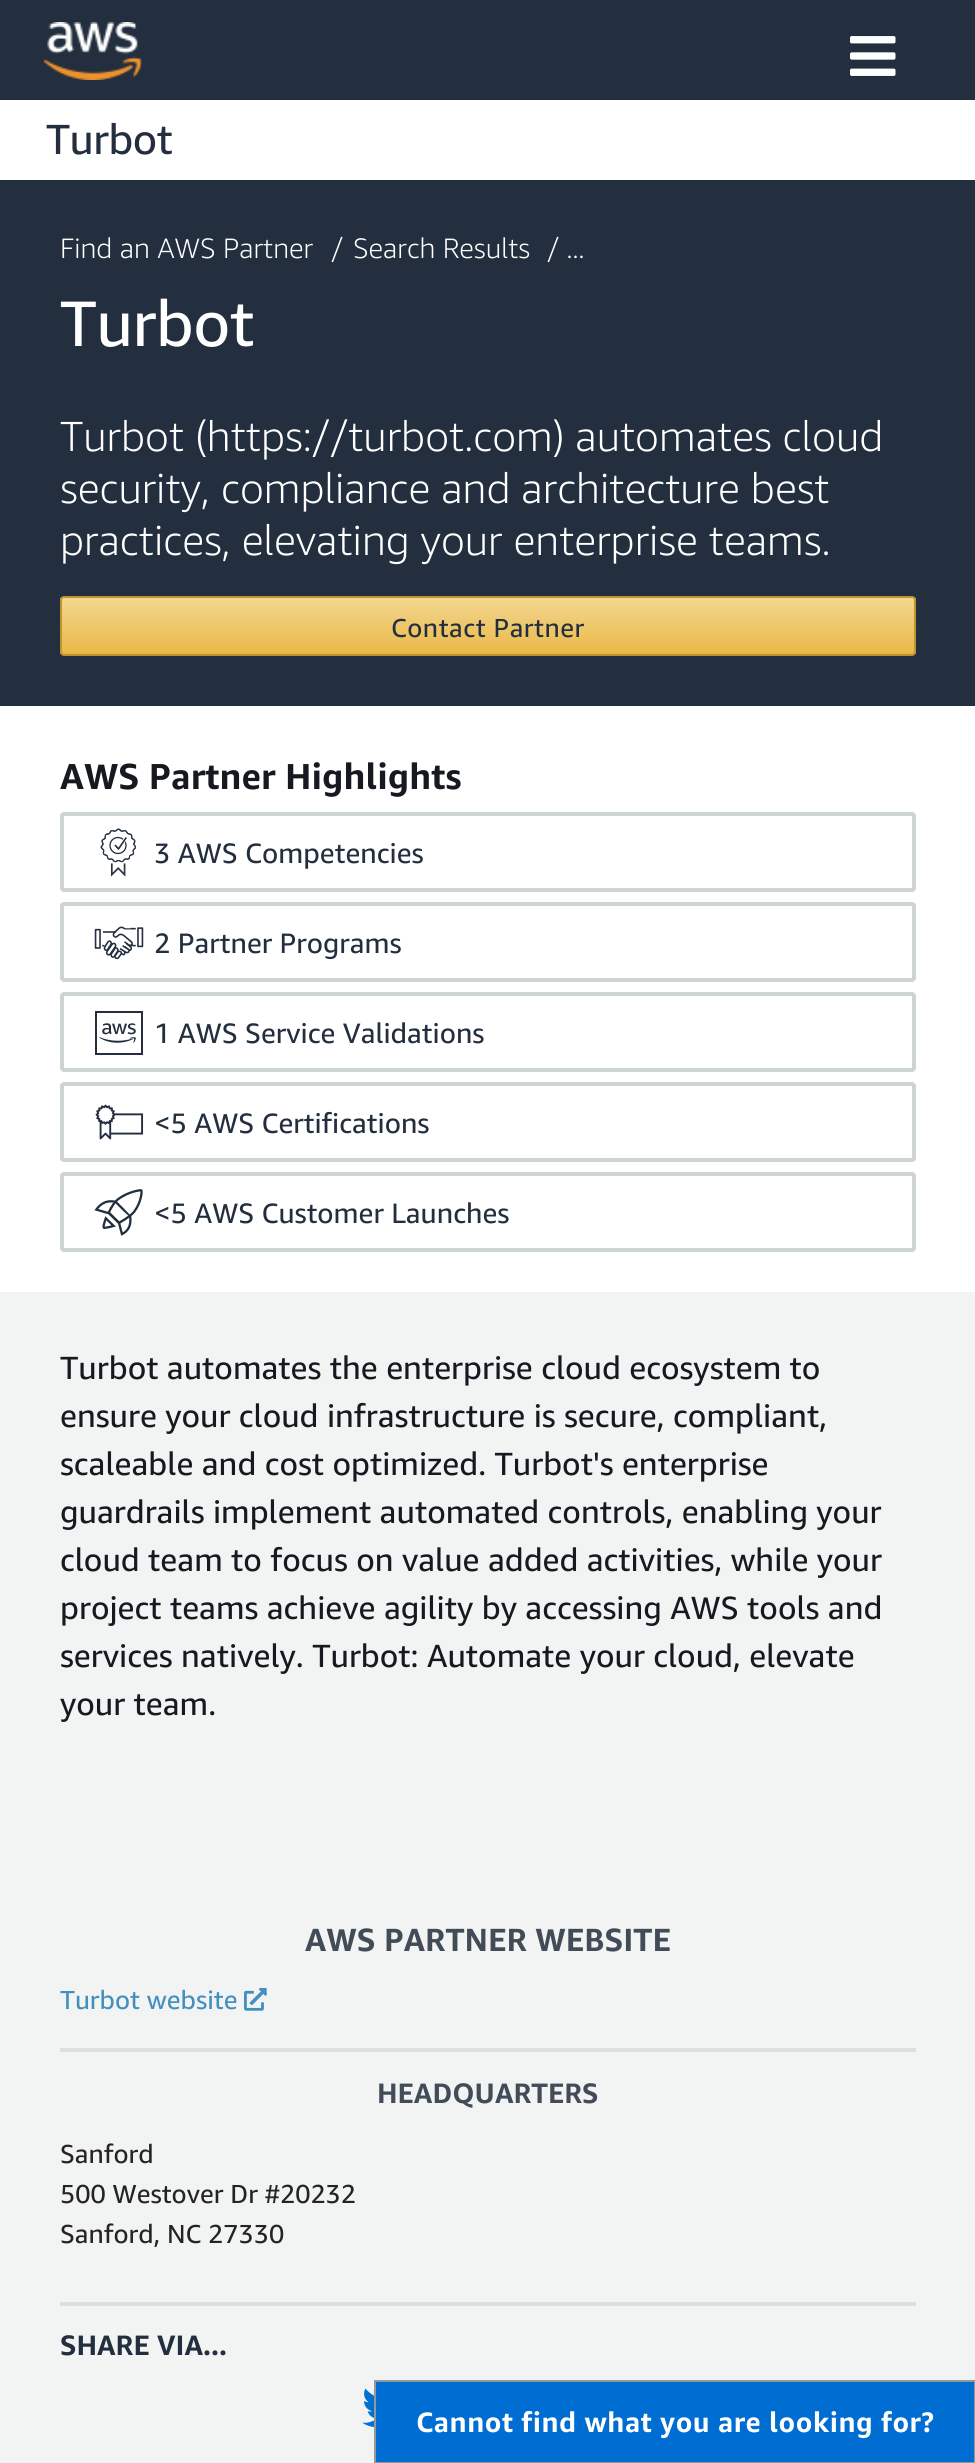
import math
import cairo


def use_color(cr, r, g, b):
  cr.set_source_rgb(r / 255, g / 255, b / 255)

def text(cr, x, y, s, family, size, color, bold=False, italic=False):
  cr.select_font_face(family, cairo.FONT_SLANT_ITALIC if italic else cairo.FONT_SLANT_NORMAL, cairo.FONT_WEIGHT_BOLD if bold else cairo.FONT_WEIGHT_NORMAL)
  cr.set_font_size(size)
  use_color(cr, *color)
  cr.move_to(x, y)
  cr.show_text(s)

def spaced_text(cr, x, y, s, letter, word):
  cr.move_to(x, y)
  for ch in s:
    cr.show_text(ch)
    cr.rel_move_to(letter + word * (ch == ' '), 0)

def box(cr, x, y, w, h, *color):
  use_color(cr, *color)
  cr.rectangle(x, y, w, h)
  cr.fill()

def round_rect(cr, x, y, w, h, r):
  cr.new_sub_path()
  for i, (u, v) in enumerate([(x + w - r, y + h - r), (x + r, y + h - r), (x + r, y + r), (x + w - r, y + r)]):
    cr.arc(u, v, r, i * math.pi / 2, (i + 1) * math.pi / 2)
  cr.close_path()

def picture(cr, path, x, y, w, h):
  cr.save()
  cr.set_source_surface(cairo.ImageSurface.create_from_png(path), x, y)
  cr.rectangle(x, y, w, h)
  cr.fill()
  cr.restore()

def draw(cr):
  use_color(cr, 255, 255, 255)
  cr.paint()
  box(cr, 0, 0, 975, 100, 35, 47, 62)
  picture(cr, "img_01.png", 44, 22, 98, 58)
  picture(cr, "img_02.png", 850, 36, 46, 40)
  box(cr, 0, 180, 975, 526, 35, 47, 62)
  cr.save()
  round_rect(cr, 60, 596, 856, 60, 4)
  cr.clip()
  gradient = cairo.LinearGradient(488, 598, 488, 654)
  gradient.add_color_stop_rgba(0, 0.953, 0.839, 0.569, 1)
  gradient.add_color_stop_rgba(1, 0.918, 0.725, 0.275, 1)
  cr.set_source(gradient)
  cr.rectangle(60, 598, 856, 56)
  cr.fill()
  cr.restore()
  round_rect(cr, 61, 597, 854, 58, 3)
  use_color(cr, 190, 149, 44)
  cr.stroke()
  round_rect(cr, 62, 814, 852, 76, 2)
  use_color(cr, 206, 212, 212)
  cr.set_line_width(4)
  cr.stroke()
  picture(cr, "img_03.png", 100, 828, 36, 49)
  round_rect(cr, 62, 904, 852, 76, 2)
  cr.stroke()
  picture(cr, "img_04.png", 94, 926, 50, 34)
  round_rect(cr, 62, 994, 852, 76, 2)
  cr.stroke()
  picture(cr, "img_05.png", 95, 1011, 48, 44)
  round_rect(cr, 62, 1084, 852, 76, 2)
  cr.stroke()
  picture(cr, "img_06.png", 95, 1104, 49, 36)
  round_rect(cr, 62, 1174, 852, 76, 2)
  cr.stroke()
  picture(cr, "img_07.png", 94, 1189, 49, 47)
  box(cr, 0, 1292, 975, 1171, 242, 243, 243)
  box(cr, 60, 2048, 856, 4, 222, 223, 225)
  picture(cr, "img_08.png", 244, 1988, 23, 23)
  box(cr, 60, 2302, 856, 4, 222, 223, 225)
  picture(cr, "img_09.png", 362, 2388, 12, 39)
  use_color(cr, 0, 109, 210)
  cr.rectangle(375, 2381, 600, 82)
  cr.fill_preserve()
  use_color(cr, 151, 151, 151)
  cr.set_line_width(2)
  cr.stroke()
  cr.select_font_face("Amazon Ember")
  cr.set_font_size(42)
  use_color(cr, 35, 47, 62)
  spaced_text(cr, 46, 154, "Turbot", -0.5, 0)
  text(cr, 60, 258, "Find an AWS Partner", "Amazon Ember Light", 28, (255, 255, 255))
  text(cr, 331, 258, "/", "Amazon Ember Light", 28, (255, 255, 255))
  text(cr, 353, 258, "Search Results", "Amazon Ember Light", 28, (255, 255, 255))
  text(cr, 547, 258, "/ ...", "Amazon Ember Light", 28, (255, 255, 255))
  cr.select_font_face("Amazon Ember")
  cr.set_font_size(64)
  spaced_text(cr, 60, 346, "Turbot", -0.5, 0)
  text(cr, 60, 451, "Turbot (https://turbot.com) automates cloud", "Amazon Ember Light", 42, (255, 255, 255))
  text(cr, 60, 503, "security, compliance and architecture best", "Amazon Ember Light", 42, (255, 255, 255))
  text(cr, 60, 555, "practices, elevating your enterprise teams.", "Amazon Ember Light", 42, (255, 255, 255))
  cr.select_font_face("Amazon Ember")
  cr.set_font_size(26)
  use_color(cr, 35, 47, 62)
  spaced_text(cr, 391, 637, "Contact Partner", 0.5, 0)
  text(cr, 60, 789, "AWS Partner Highlights", "Amazon Ember", 36, (22, 25, 31), bold=True)
  text(cr, 154, 863, "3 AWS Competencies", "Amazon Ember", 28, (35, 47, 62))
  text(cr, 154, 953, "2 Partner Programs", "Amazon Ember", 28, (35, 47, 62))
  text(cr, 154, 1043, "1 AWS Service Validations", "Amazon Ember", 28, (35, 47, 62))
  text(cr, 154, 1133, "<5 AWS Certifications", "Amazon Ember", 28, (35, 47, 62))
  text(cr, 154, 1223, "<5 AWS Customer Launches", "Amazon Ember", 28, (35, 47, 62))
  text(cr, 60, 1379, "Turbot automates the enterprise cloud ecosystem to", "Amazon Ember", 32, (22, 25, 31))
  text(cr, 60, 1427, "ensure your cloud infrastructure is secure, compliant,", "Amazon Ember", 32, (22, 25, 31))
  text(cr, 60, 1475, "scaleable and cost optimized. Turbot's enterprise", "Amazon Ember", 32, (22, 25, 31))
  text(cr, 60, 1523, "guardrails implement automated controls, enabling your", "Amazon Ember", 32, (22, 25, 31))
  text(cr, 60, 1571, "cloud team to focus on value added activities, while your", "Amazon Ember", 32, (22, 25, 31))
  text(cr, 60, 1619, "project teams achieve agility by accessing AWS tools and", "Amazon Ember", 32, (22, 25, 31))
  text(cr, 60, 1667, "services natively. Turbot: Automate your cloud, elevate", "Amazon Ember", 32, (22, 25, 31))
  text(cr, 60, 1715, "your team.", "Amazon Ember", 32, (22, 25, 31))
  text(cr, 305, 1951, "AWS PARTNER WEBSITE", "Amazon Ember", 32, (66, 76, 89), bold=True)
  text(cr, 60, 2009, "Turbot website", "Amazon Ember", 26, (67, 144, 191))
  text(cr, 377, 2103, "HEADQUARTERS", "Amazon Ember", 28, (66, 76, 89), bold=True)
  text(cr, 60, 2163, "Sanford", "Amazon Ember", 26, (36, 36, 36))
  text(cr, 60, 2203, "500 Westover Dr #20232", "Amazon Ember", 26, (36, 36, 36))
  text(cr, 60, 2243, "Sanford, NC 27330", "Amazon Ember", 26, (36, 36, 36))
  text(cr, 60, 2355, "SHARE VIA...", "Amazon Ember", 28, (35, 47, 62), bold=True)
  use_color(cr, 255, 255, 255)
  spaced_text(cr, 416, 2432, "Cannot find what you are looking for?", 0.5, 0)


surface = cairo.ImageSurface(cairo.FORMAT_RGB24, 975, 2463)
cr = cairo.Context(surface)
options = cairo.FontOptions()
options.set_hint_metrics(cairo.HINT_METRICS_OFF)
options.set_hint_style(cairo.HINT_STYLE_NONE)
cr.set_font_options(options)
cr.set_miter_limit(4)
draw(cr)
surface.write_to_png("out.png")
